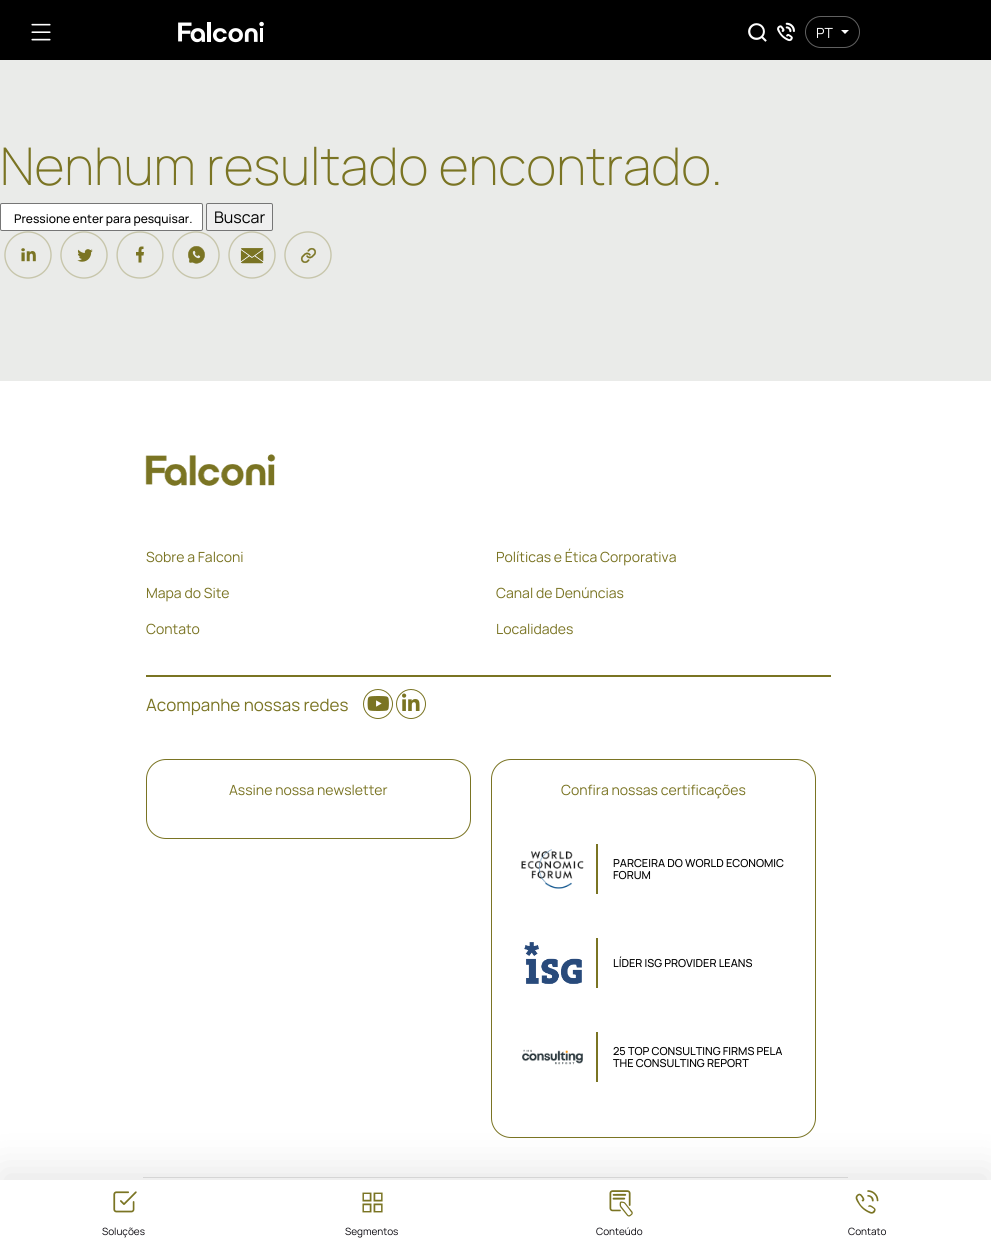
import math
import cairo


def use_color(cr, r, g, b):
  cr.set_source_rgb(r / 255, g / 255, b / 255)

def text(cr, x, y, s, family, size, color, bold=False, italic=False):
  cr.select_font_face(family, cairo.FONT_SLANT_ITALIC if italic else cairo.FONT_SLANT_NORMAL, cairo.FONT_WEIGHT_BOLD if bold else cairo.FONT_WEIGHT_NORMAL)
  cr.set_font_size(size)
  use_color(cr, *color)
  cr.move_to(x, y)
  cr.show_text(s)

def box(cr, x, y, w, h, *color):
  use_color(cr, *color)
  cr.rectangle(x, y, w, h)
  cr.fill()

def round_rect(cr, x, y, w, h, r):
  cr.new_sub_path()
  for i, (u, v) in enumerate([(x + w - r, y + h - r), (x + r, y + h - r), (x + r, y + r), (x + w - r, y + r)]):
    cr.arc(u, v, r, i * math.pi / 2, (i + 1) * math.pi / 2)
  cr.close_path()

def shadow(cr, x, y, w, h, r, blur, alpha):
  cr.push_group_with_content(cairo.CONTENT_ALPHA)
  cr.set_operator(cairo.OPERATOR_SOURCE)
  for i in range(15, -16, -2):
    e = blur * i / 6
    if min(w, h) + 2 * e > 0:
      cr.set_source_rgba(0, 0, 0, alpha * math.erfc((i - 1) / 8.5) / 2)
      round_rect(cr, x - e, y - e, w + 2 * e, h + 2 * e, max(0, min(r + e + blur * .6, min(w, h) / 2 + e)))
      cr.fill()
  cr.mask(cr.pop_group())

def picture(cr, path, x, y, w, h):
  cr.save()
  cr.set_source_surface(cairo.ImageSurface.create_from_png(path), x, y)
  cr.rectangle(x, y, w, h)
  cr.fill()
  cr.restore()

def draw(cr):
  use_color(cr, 234, 235, 233)
  cr.paint()
  box(cr, 0, 0, 991, 60, 0, 0, 0)
  picture(cr, "img_01.png", 178, 21, 86, 22)
  picture(cr, "img_02.png", 748, 23, 19, 19)
  picture(cr, "img_03.png", 777, 22, 18, 20)
  round_rect(cr, 805.5, 16.5, 54, 31, 15.5)
  use_color(cr, 97, 97, 97)
  cr.set_line_width(1)
  cr.stroke()
  use_color(cr, 255, 255, 255)
  cr.new_path()
  cr.move_to(841, 30)
  cr.line_to(849, 30)
  cr.line_to(845, 34)
  cr.close_path()
  cr.fill()
  box(cr, 0, 381, 991, 799, 255, 255, 255)
  round_rect(cr, 491.5, 759.5, 324, 378, 19.5)
  use_color(cr, 122, 116, 35)
  cr.stroke()
  box(cr, 143, 1177, 705, 1, 227, 227, 227)
  use_color(cr, 0, 0, 0)
  shadow(cr, 0, 1170, 991, 64, 0, 20, 0.1)
  box(cr, 0, 1180, 991, 64, 255, 255, 255)
  picture(cr, "img_04.png", 31, 23, 20, 18)
  picture(cr, "img_05.png", 113, 1191, 24, 22)
  picture(cr, "img_06.png", 362, 1192, 21, 21)
  picture(cr, "img_07.png", 609, 1190, 24, 27)
  picture(cr, "img_08.png", 855, 1190, 24, 24)
  round_rect(cr, 0.5, 203.5, 202, 27, 1.5)
  cr.fill_preserve()
  use_color(cr, 118, 118, 118)
  cr.stroke()
  use_color(cr, 239, 239, 239)
  round_rect(cr, 206.5, 203.5, 66, 27, 1.5)
  cr.fill_preserve()
  use_color(cr, 118, 118, 118)
  cr.stroke()
  picture(cr, "img_09.png", 4, 231, 48, 48)
  picture(cr, "img_10.png", 60, 231, 48, 48)
  cr.new_path()
  cr.move_to(140, 278)
  cr.curve_to(170.5, 278, 170.5, 232, 140, 232)
  cr.curve_to(109.5, 232, 109.5, 278, 140, 278)
  cr.close_path()
  use_color(cr, 199, 198, 171)
  cr.set_line_width(1.4)
  cr.stroke()
  use_color(cr, 122, 116, 35)
  cr.set_fill_rule(cairo.FILL_RULE_EVEN_ODD)
  cr.new_path()
  cr.move_to(141.5, 262.5)
  cr.line_to(141.5, 255.5)
  cr.line_to(143.5, 255.5)
  cr.line_to(144, 252)
  cr.line_to(141.5, 252)
  cr.curve_to(141.5, 249.5, 141, 249, 143.5, 249)
  cr.line_to(143.5, 246.5)
  cr.line_to(141.5, 246.5)
  cr.curve_to(138.5, 246.5, 138.5, 249.5, 138.5, 252)
  cr.line_to(136, 252)
  cr.line_to(136, 255.5)
  cr.line_to(138.5, 255.5)
  cr.line_to(138.5, 262.5)
  cr.close_path()
  cr.fill()
  picture(cr, "img_11.png", 172, 231, 48, 48)
  picture(cr, "img_12.png", 228, 231, 48, 48)
  picture(cr, "img_13.png", 284, 231, 48, 48)
  picture(cr, "img_14.png", 145, 454, 131, 32)
  box(cr, 146, 675, 685, 2, 122, 116, 35)
  cr.arc(378, 704, 14.5, 0, 2 * math.pi)
  cr.set_line_width(1)
  cr.stroke()
  picture(cr, "img_15.png", 367, 696, 22, 15)
  cr.arc(411, 704, 14.5, 0, 2 * math.pi)
  cr.stroke()
  picture(cr, "img_16.png", 402, 693, 18, 18)
  round_rect(cr, 146.5, 759.5, 324, 79, 19.5)
  cr.stroke()
  picture(cr, "img_17.png", 521, 849, 63, 40)
  box(cr, 596, 844, 2, 50, 122, 116, 35)
  picture(cr, "img_18.png", 524, 942, 58, 42)
  box(cr, 596, 938, 2, 50, 122, 116, 35)
  picture(cr, "img_19.png", 522, 1049, 61, 16)
  box(cr, 596, 1032, 2, 50, 122, 116, 35)
  text(cr, 816, 38, "PT", "Manrope", 14, (255, 255, 255))
  text(cr, 102, 1235, "Soluções", "Manrope", 10, (7, 5, 11))
  text(cr, 345, 1235, "Segmentos", "Manrope", 10, (7, 5, 11))
  text(cr, 596, 1235, "Conteúdo", "Manrope", 10, (7, 5, 11))
  text(cr, 848, 1235, "Contato", "Manrope", 10, (7, 5, 11))
  text(cr, 0, 185, "Nenhum resultado encontrado.", "Manrope ExtraLight", 52, (122, 116, 35))
  text(cr, 14, 223, "Pressione enter para pesquisar.", "Manrope Medium", 12, (0, 0, 0))
  text(cr, 214, 223, "Buscar", "Manrope", 16, (0, 0, 0))
  text(cr, 146, 562, "Sobre a Falconi", "Manrope", 14, (122, 116, 35))
  text(cr, 146, 598, "Mapa do Site", "Manrope", 14, (122, 116, 35))
  text(cr, 146, 634, "Contato", "Manrope", 14, (122, 116, 35))
  text(cr, 496, 562, "Políticas e Ética Corporativa", "Manrope", 14, (122, 116, 35))
  text(cr, 496, 598, "Canal de Denúncias", "Manrope", 14, (122, 116, 35))
  text(cr, 496, 634, "Localidades", "Manrope", 14, (122, 116, 35))
  text(cr, 146, 711, "Acompanhe nossas redes", "Manrope", 17, (122, 116, 35))
  text(cr, 229, 795, "Assine nossa newsletter", "Manrope", 14, (122, 116, 35))
  text(cr, 561, 795, "Confira nossas certificações", "Manrope", 14, (122, 116, 35))
  text(cr, 613, 867, "PARCEIRA DO WORLD ECONOMIC", "Manrope Medium", 11, (0, 0, 0))
  text(cr, 613, 879, "FORUM", "Manrope Medium", 11, (0, 0, 0))
  text(cr, 613, 967, "LÍDER ISG PROVIDER LEANS", "Manrope Medium", 11, (0, 0, 0))
  text(cr, 613, 1055, "25 TOP CONSULTING FIRMS PELA", "Manrope Medium", 11, (0, 0, 0))
  text(cr, 613, 1067, "THE CONSULTING REPORT", "Manrope Medium", 11, (0, 0, 0))


surface = cairo.ImageSurface(cairo.FORMAT_RGB24, 991, 1244)
cr = cairo.Context(surface)
options = cairo.FontOptions()
options.set_hint_metrics(cairo.HINT_METRICS_OFF)
options.set_hint_style(cairo.HINT_STYLE_NONE)
cr.set_font_options(options)
cr.set_miter_limit(4)
draw(cr)
surface.write_to_png("out.png")
